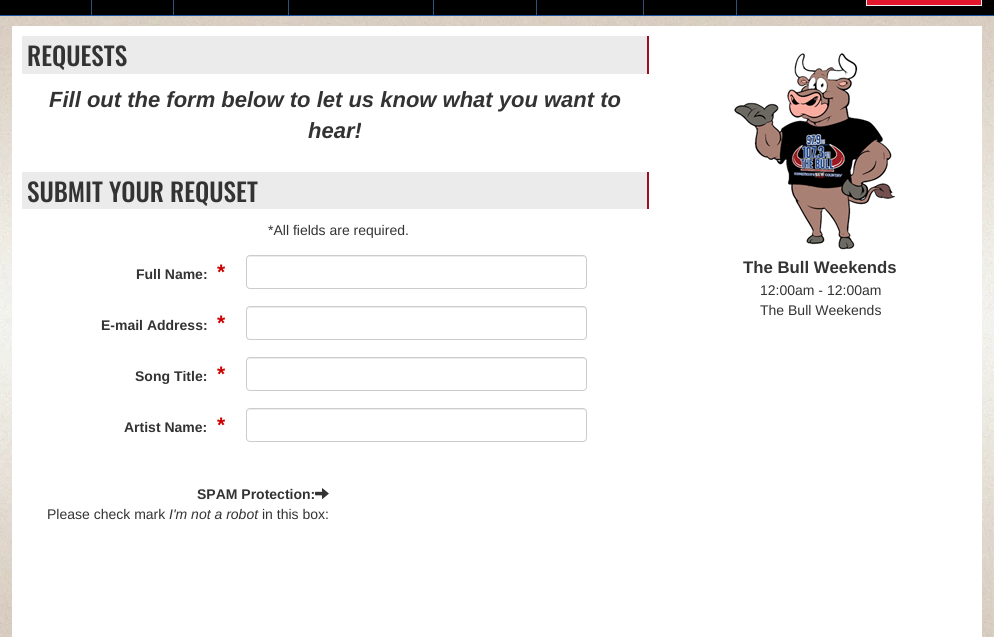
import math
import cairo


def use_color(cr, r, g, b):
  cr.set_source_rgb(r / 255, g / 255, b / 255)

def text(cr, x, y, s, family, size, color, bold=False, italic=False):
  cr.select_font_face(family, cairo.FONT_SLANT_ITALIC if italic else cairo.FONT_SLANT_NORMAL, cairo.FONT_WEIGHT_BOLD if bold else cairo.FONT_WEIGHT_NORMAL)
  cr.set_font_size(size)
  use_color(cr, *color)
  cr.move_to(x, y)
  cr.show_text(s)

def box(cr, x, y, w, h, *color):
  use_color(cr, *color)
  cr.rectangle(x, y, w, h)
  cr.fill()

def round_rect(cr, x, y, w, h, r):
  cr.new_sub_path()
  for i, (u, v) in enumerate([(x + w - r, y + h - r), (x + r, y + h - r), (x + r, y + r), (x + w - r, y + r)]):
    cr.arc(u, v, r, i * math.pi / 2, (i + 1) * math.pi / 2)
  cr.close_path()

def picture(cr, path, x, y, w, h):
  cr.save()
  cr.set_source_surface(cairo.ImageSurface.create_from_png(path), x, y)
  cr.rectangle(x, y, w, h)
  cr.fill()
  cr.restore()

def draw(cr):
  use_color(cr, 255, 255, 255)
  cr.paint()
  picture(cr, "img_01.png", 0, 16, 994, 621)
  box(cr, 0, 0, 994, 15, 0, 0, 0)
  box(cr, 0, 15, 994, 1, 31, 84, 160)
  box(cr, 91, 0, 1, 15, 44, 83, 122)
  box(cr, 173, 0, 1, 15, 44, 83, 122)
  box(cr, 288, 0, 1, 15, 44, 83, 122)
  box(cr, 433, 0, 1, 15, 44, 83, 122)
  box(cr, 536, 0, 1, 15, 44, 83, 122)
  box(cr, 643, 0, 1, 15, 44, 83, 122)
  box(cr, 736, 0, 1, 15, 44, 83, 122)
  use_color(cr, 227, 22, 45)
  cr.rectangle(866.5, -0.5, 115, 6)
  cr.fill_preserve()
  use_color(cr, 238, 238, 238)
  cr.set_line_width(1)
  cr.stroke()
  box(cr, 12, 26, 970, 611, 255, 255, 255)
  box(cr, 22, 36, 625, 38, 235, 235, 235)
  box(cr, 647, 36, 2, 38, 157, 15, 31)
  box(cr, 22, 172, 625, 37, 235, 235, 235)
  box(cr, 647, 172, 2, 37, 157, 15, 31)
  use_color(cr, 236, 236, 236)
  cr.new_path()
  cr.move_to(250, 257)
  cr.line_to(583, 257)
  cr.curve_to(585, 257, 586, 258, 586, 260)
  cr.curve_to(586, 258, 585, 256, 583, 256)
  cr.line_to(250, 256)
  cr.curve_to(248, 256, 247, 258, 247, 260)
  cr.curve_to(247, 258, 248, 257, 250, 257)
  cr.close_path()
  cr.fill()
  round_rect(cr, 246.5, 255.5, 340, 33, 3.5)
  use_color(cr, 204, 204, 204)
  cr.stroke()
  use_color(cr, 236, 236, 236)
  cr.new_path()
  cr.move_to(250, 308)
  cr.line_to(583, 308)
  cr.curve_to(585, 308, 586, 309, 586, 311)
  cr.curve_to(586, 309, 585, 307, 583, 307)
  cr.line_to(250, 307)
  cr.curve_to(248, 307, 247, 309, 247, 311)
  cr.curve_to(247, 309, 248, 308, 250, 308)
  cr.close_path()
  cr.fill()
  round_rect(cr, 246.5, 306.5, 340, 33, 3.5)
  use_color(cr, 204, 204, 204)
  cr.stroke()
  use_color(cr, 236, 236, 236)
  cr.new_path()
  cr.move_to(250, 359)
  cr.line_to(583, 359)
  cr.curve_to(585, 359, 586, 360, 586, 362)
  cr.curve_to(586, 360, 585, 358, 583, 358)
  cr.line_to(250, 358)
  cr.curve_to(248, 358, 247, 360, 247, 362)
  cr.curve_to(247, 360, 248, 359, 250, 359)
  cr.close_path()
  cr.fill()
  round_rect(cr, 246.5, 357.5, 340, 33, 3.5)
  use_color(cr, 204, 204, 204)
  cr.stroke()
  use_color(cr, 236, 236, 236)
  cr.new_path()
  cr.move_to(250, 410)
  cr.line_to(583, 410)
  cr.curve_to(585, 410, 586, 411, 586, 413)
  cr.curve_to(586, 411, 585, 409, 583, 409)
  cr.line_to(250, 409)
  cr.curve_to(248, 409, 247, 411, 247, 413)
  cr.curve_to(247, 411, 248, 410, 250, 410)
  cr.close_path()
  cr.fill()
  round_rect(cr, 246.5, 408.5, 340, 33, 3.5)
  use_color(cr, 204, 204, 204)
  cr.stroke()
  picture(cr, "img_02.png", 315, 488, 14, 11)
  picture(cr, "img_03.png", 734, 52, 162, 198)
  text(cr, 27, 66, "REQUESTS", "Oswald Medium", 25.25, (51, 51, 51))
  text(cr, 49, 107, "Fill out the form below to let us know what you want to", "Liberation Sans", 22, (51, 51, 51), bold=True, italic=True)
  text(cr, 308, 138, "hear!", "Liberation Sans", 22, (51, 51, 51), bold=True, italic=True)
  text(cr, 27, 202, "SUBMIT YOUR REQUSET", "Oswald Medium", 25.25, (51, 51, 51))
  text(cr, 268, 235, "*All fields are required.", "Liberation Sans", 14, (51, 51, 51))
  text(cr, 136, 279, "Full Name:", "Liberation Sans", 14, (51, 51, 51), bold=True)
  text(cr, 217, 279, "*", "Liberation Sans", 21, (204, 0, 0), bold=True)
  text(cr, 101, 330, "E-mail Address:", "Liberation Sans", 14, (51, 51, 51), bold=True)
  text(cr, 217, 330, "*", "Liberation Sans", 21, (204, 0, 0), bold=True)
  text(cr, 135, 381, "Song Title:", "Liberation Sans", 14, (51, 51, 51), bold=True)
  text(cr, 217, 381, "*", "Liberation Sans", 21, (204, 0, 0), bold=True)
  text(cr, 124, 432, "Artist Name:", "Liberation Sans", 14, (51, 51, 51), bold=True)
  text(cr, 217, 432, "*", "Liberation Sans", 21, (204, 0, 0), bold=True)
  text(cr, 197, 499, "SPAM Protection:", "Liberation Sans", 14, (51, 51, 51), bold=True)
  text(cr, 47, 519, "Please check mark", "Liberation Sans", 14, (51, 51, 51))
  text(cr, 169, 519, "I'm not a robot", "Liberation Sans", 14, (51, 51, 51), italic=True)
  text(cr, 262, 519, "in this box:", "Liberation Sans", 14, (51, 51, 51))
  text(cr, 743, 273, "The Bull Weekends", "Liberation Sans", 16.75, (51, 51, 51), bold=True)
  text(cr, 760, 295, "12:00am - 12:00am", "Liberation Sans", 14, (51, 51, 51))
  text(cr, 760, 315, "The Bull Weekends", "Liberation Sans", 14, (51, 51, 51))


surface = cairo.ImageSurface(cairo.FORMAT_RGB24, 994, 637)
cr = cairo.Context(surface)
options = cairo.FontOptions()
options.set_hint_metrics(cairo.HINT_METRICS_OFF)
options.set_hint_style(cairo.HINT_STYLE_NONE)
cr.set_font_options(options)
cr.set_miter_limit(4)
draw(cr)
surface.write_to_png("out.png")
